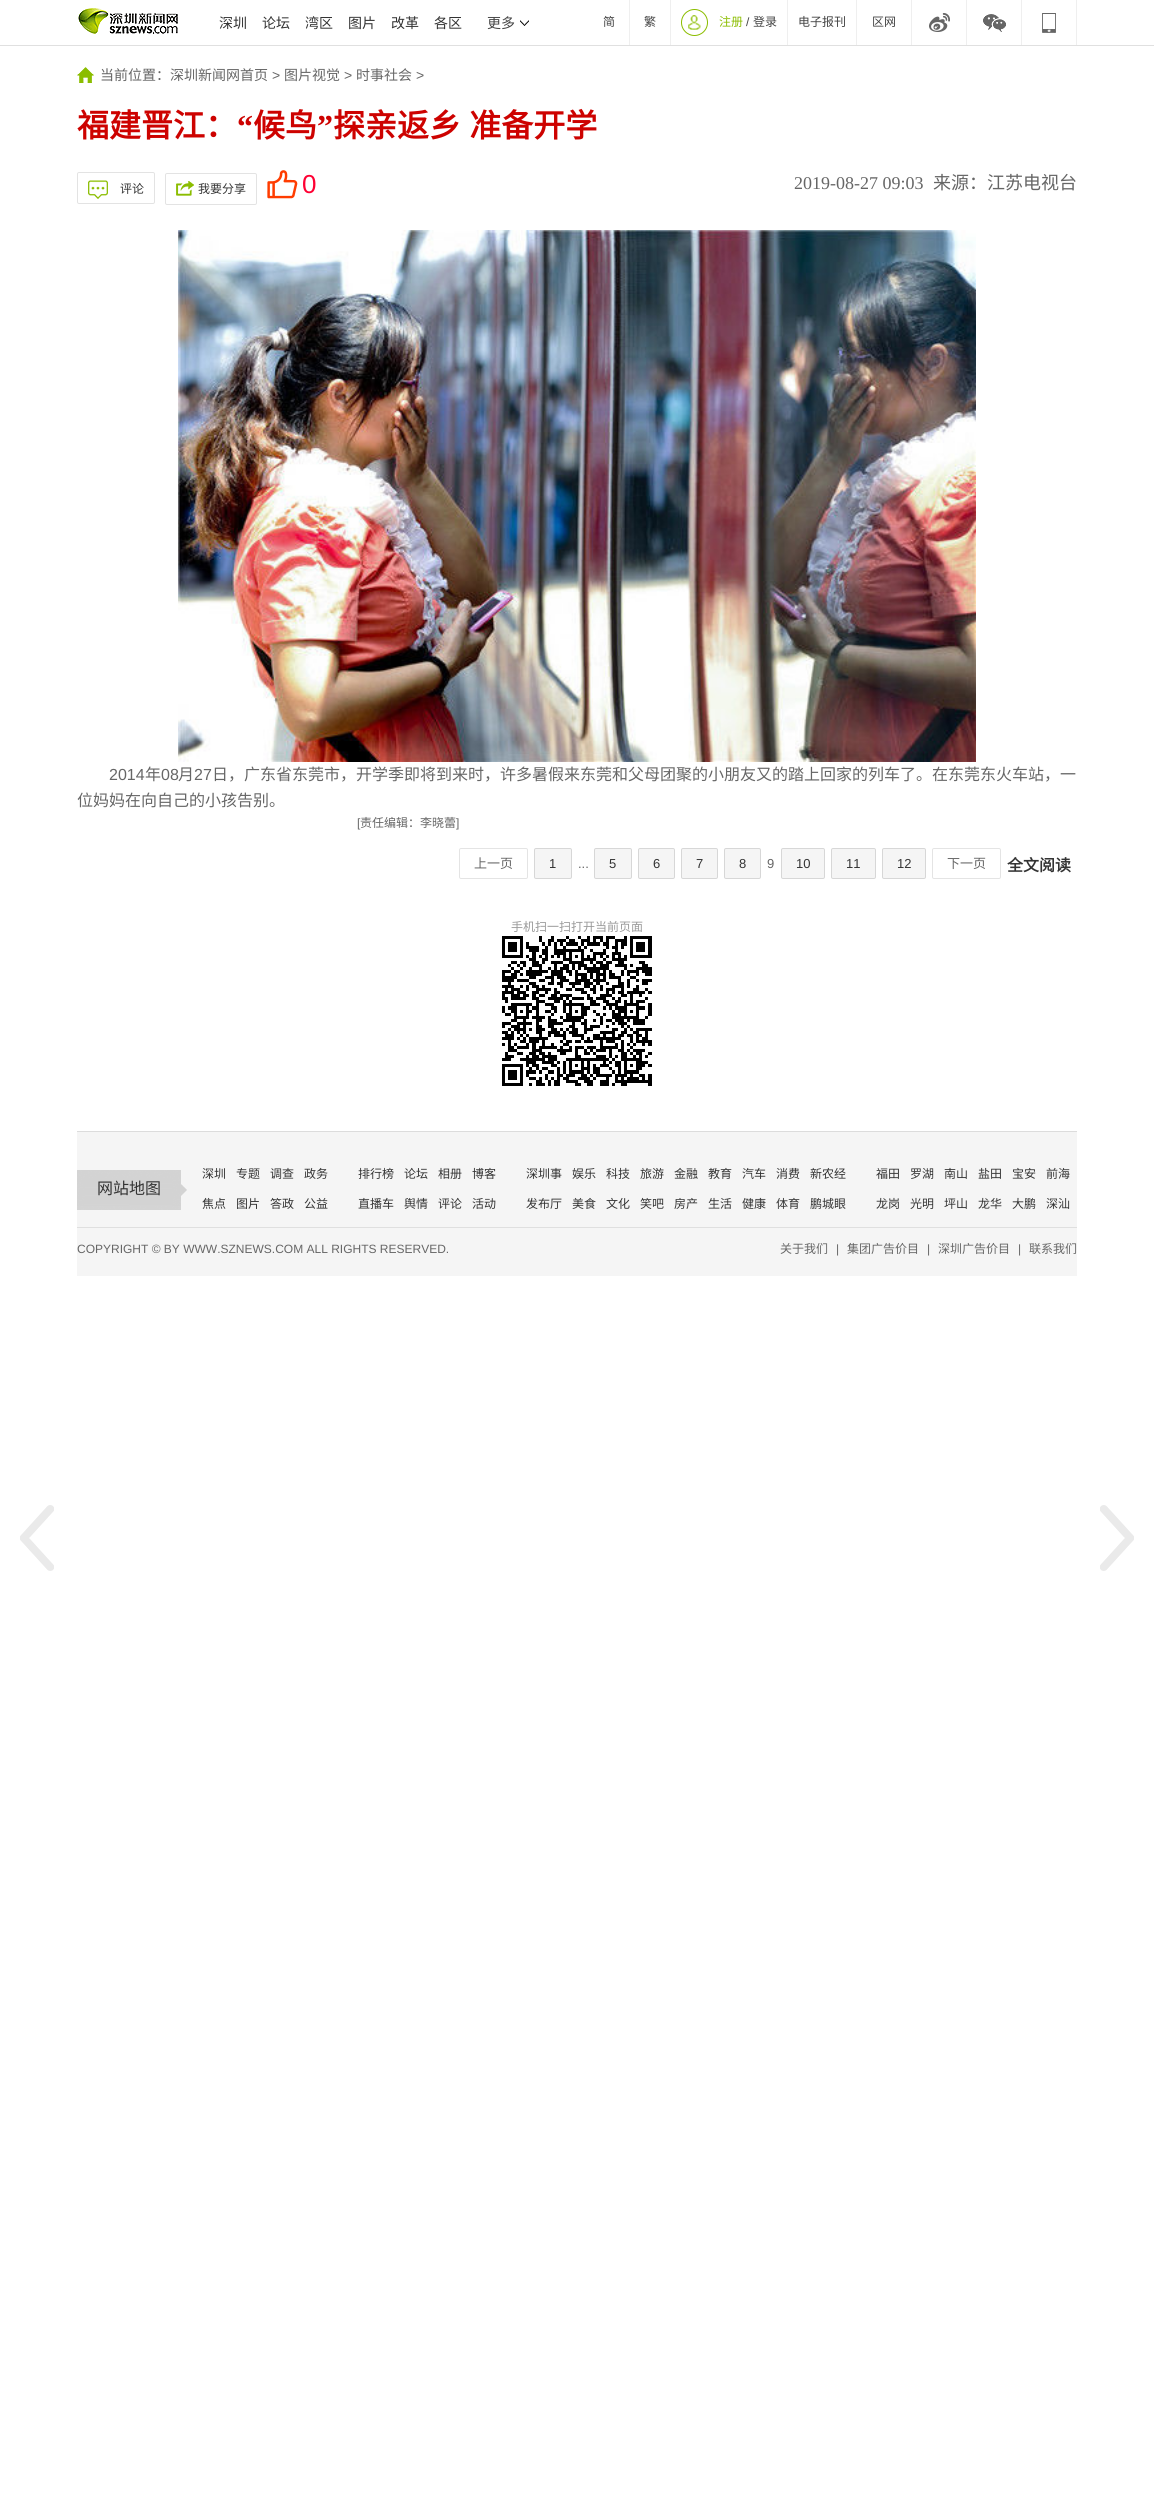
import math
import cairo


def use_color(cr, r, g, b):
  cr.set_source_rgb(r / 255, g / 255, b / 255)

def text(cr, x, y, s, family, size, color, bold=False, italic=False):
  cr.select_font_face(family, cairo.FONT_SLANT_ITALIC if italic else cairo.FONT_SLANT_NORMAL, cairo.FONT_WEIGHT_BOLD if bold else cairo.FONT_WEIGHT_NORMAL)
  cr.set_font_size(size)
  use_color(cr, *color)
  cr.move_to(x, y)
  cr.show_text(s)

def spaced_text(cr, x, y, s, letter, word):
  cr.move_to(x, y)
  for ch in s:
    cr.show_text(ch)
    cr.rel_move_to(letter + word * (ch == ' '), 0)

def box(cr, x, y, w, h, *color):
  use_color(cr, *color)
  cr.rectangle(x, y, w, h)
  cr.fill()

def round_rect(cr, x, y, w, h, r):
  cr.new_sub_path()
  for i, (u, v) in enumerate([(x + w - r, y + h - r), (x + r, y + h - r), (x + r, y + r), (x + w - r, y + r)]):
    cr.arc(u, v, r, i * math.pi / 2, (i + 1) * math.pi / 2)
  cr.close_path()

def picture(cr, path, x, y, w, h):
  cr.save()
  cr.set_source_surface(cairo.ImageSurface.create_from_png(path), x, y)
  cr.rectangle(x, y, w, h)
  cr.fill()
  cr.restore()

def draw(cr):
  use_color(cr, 255, 255, 255)
  cr.paint()
  box(cr, 0, 45, 1154, 1, 224, 224, 224)
  picture(cr, "img_01.png", 78, 8, 100, 26)
  picture(cr, "img_02.png", 520, 20, 9, 6)
  box(cr, 629, 0, 1, 45, 239, 239, 239)
  box(cr, 670, 0, 1, 45, 239, 239, 239)
  box(cr, 787, 0, 1, 45, 239, 239, 239)
  picture(cr, "img_03.png", 681, 9, 27, 27)
  box(cr, 856, 0, 1, 45, 239, 239, 239)
  box(cr, 911, 0, 1, 45, 239, 239, 239)
  box(cr, 966, 0, 1, 45, 239, 239, 239)
  picture(cr, "img_04.png", 929, 13, 21, 19)
  box(cr, 1021, 0, 1, 45, 239, 239, 239)
  picture(cr, "img_05.png", 983, 14, 23, 18)
  box(cr, 1076, 0, 1, 45, 239, 239, 239)
  picture(cr, "img_06.png", 1042, 13, 14, 20)
  picture(cr, "img_07.png", 77, 67, 17, 16)
  picture(cr, "img_08.png", 88, 180, 20, 19)
  round_rect(cr, 77.5, 172.5, 77, 31, 1.5)
  use_color(cr, 227, 227, 227)
  cr.set_line_width(1)
  cr.stroke()
  picture(cr, "img_09.png", 176, 181, 18, 15)
  round_rect(cr, 165.5, 173.5, 91, 31, 1.5)
  cr.stroke()
  picture(cr, "img_10.png", 267, 170, 31, 29)
  picture(cr, "img_11.png", 178, 230, 798, 532)
  round_rect(cr, 459.5, 848.5, 68, 30, 1.5)
  use_color(cr, 228, 228, 228)
  cr.stroke()
  use_color(cr, 245, 245, 245)
  round_rect(cr, 534.5, 848.5, 37, 30, 1.5)
  cr.fill_preserve()
  use_color(cr, 215, 215, 215)
  cr.stroke()
  use_color(cr, 245, 245, 245)
  round_rect(cr, 594.5, 848.5, 37, 30, 1.5)
  cr.fill_preserve()
  use_color(cr, 215, 215, 215)
  cr.stroke()
  use_color(cr, 245, 245, 245)
  round_rect(cr, 638.5, 848.5, 36, 30, 1.5)
  cr.fill_preserve()
  use_color(cr, 215, 215, 215)
  cr.stroke()
  use_color(cr, 245, 245, 245)
  round_rect(cr, 681.5, 848.5, 36, 30, 1.5)
  cr.fill_preserve()
  use_color(cr, 215, 215, 215)
  cr.stroke()
  use_color(cr, 245, 245, 245)
  round_rect(cr, 724.5, 848.5, 36, 30, 1.5)
  cr.fill_preserve()
  use_color(cr, 215, 215, 215)
  cr.stroke()
  use_color(cr, 245, 245, 245)
  round_rect(cr, 781.5, 848.5, 43, 30, 1.5)
  cr.fill_preserve()
  use_color(cr, 215, 215, 215)
  cr.stroke()
  use_color(cr, 245, 245, 245)
  round_rect(cr, 831.5, 848.5, 44, 30, 1.5)
  cr.fill_preserve()
  use_color(cr, 215, 215, 215)
  cr.stroke()
  use_color(cr, 245, 245, 245)
  round_rect(cr, 882.5, 848.5, 43, 30, 1.5)
  cr.fill_preserve()
  use_color(cr, 215, 215, 215)
  cr.stroke()
  round_rect(cr, 932.5, 848.5, 68, 30, 1.5)
  use_color(cr, 228, 228, 228)
  cr.stroke()
  box(cr, 502, 936, 21, 3, 0, 0, 0)
  box(cr, 539, 936, 3, 6, 0, 0, 0)
  box(cr, 551, 936, 3, 3, 0, 0, 0)
  box(cr, 566, 936, 3, 3, 0, 0, 0)
  box(cr, 578, 936, 3, 3, 0, 0, 0)
  box(cr, 587, 936, 3, 3, 0, 0, 0)
  box(cr, 593, 936, 10, 3, 0, 0, 0)
  box(cr, 606, 936, 9, 3, 0, 0, 0)
  box(cr, 624, 936, 3, 3, 0, 0, 0)
  box(cr, 630, 936, 22, 3, 0, 0, 0)
  box(cr, 502, 939, 3, 19, 0, 0, 0)
  box(cr, 520, 939, 3, 16, 0, 0, 0)
  box(cr, 548, 939, 6, 3, 0, 0, 0)
  box(cr, 557, 939, 9, 3, 0, 0, 0)
  box(cr, 569, 939, 6, 3, 0, 0, 0)
  box(cr, 581, 939, 9, 3, 0, 0, 0)
  box(cr, 593, 939, 3, 3, 0, 0, 0)
  box(cr, 600, 939, 3, 3, 0, 0, 0)
  box(cr, 606, 939, 3, 3, 0, 0, 0)
  box(cr, 615, 939, 12, 3, 0, 0, 0)
  box(cr, 630, 939, 3, 19, 0, 0, 0)
  box(cr, 648, 939, 4, 16, 0, 0, 0)
  box(cr, 508, 942, 9, 4, 0, 0, 0)
  box(cr, 526, 942, 3, 7, 0, 0, 0)
  box(cr, 542, 942, 3, 4, 0, 0, 0)
  box(cr, 548, 942, 3, 4, 0, 0, 0)
  box(cr, 554, 942, 3, 13, 0, 0, 0)
  box(cr, 560, 942, 3, 4, 0, 0, 0)
  box(cr, 566, 942, 12, 4, 0, 0, 0)
  box(cr, 581, 942, 3, 4, 0, 0, 0)
  box(cr, 587, 942, 13, 4, 0, 0, 0)
  box(cr, 603, 942, 6, 4, 0, 0, 0)
  box(cr, 615, 942, 3, 4, 0, 0, 0)
  box(cr, 621, 942, 6, 4, 0, 0, 0)
  box(cr, 636, 942, 9, 4, 0, 0, 0)
  box(cr, 508, 946, 9, 3, 0, 0, 0)
  box(cr, 529, 946, 10, 3, 0, 0, 0)
  box(cr, 545, 946, 3, 3, 0, 0, 0)
  box(cr, 563, 946, 3, 3, 0, 0, 0)
  box(cr, 578, 946, 3, 3, 0, 0, 0)
  box(cr, 584, 946, 3, 3, 0, 0, 0)
  box(cr, 606, 946, 3, 3, 0, 0, 0)
  box(cr, 612, 946, 6, 3, 0, 0, 0)
  box(cr, 621, 946, 3, 3, 0, 0, 0)
  box(cr, 636, 946, 9, 3, 0, 0, 0)
  box(cr, 508, 949, 9, 3, 0, 0, 0)
  box(cr, 529, 949, 10, 3, 0, 0, 0)
  box(cr, 542, 949, 6, 3, 0, 0, 0)
  box(cr, 557, 949, 27, 3, 0, 0, 0)
  box(cr, 590, 949, 3, 3, 0, 0, 0)
  box(cr, 603, 949, 3, 3, 0, 0, 0)
  box(cr, 615, 949, 3, 3, 0, 0, 0)
  box(cr, 636, 949, 9, 3, 0, 0, 0)
  box(cr, 532, 952, 4, 6, 0, 0, 0)
  box(cr, 542, 952, 6, 3, 0, 0, 0)
  box(cr, 557, 952, 9, 3, 0, 0, 0)
  box(cr, 569, 952, 3, 6, 0, 0, 0)
  box(cr, 581, 952, 3, 9, 0, 0, 0)
  box(cr, 593, 952, 13, 3, 0, 0, 0)
  box(cr, 612, 952, 9, 3, 0, 0, 0)
  box(cr, 505, 955, 18, 3, 0, 0, 0)
  box(cr, 526, 955, 3, 3, 0, 0, 0)
  box(cr, 539, 955, 3, 3, 0, 0, 0)
  box(cr, 545, 955, 3, 3, 0, 0, 0)
  box(cr, 551, 955, 3, 3, 0, 0, 0)
  box(cr, 557, 955, 3, 3, 0, 0, 0)
  box(cr, 563, 955, 3, 6, 0, 0, 0)
  box(cr, 575, 955, 3, 3, 0, 0, 0)
  box(cr, 587, 955, 3, 3, 0, 0, 0)
  box(cr, 593, 955, 3, 3, 0, 0, 0)
  box(cr, 600, 955, 3, 3, 0, 0, 0)
  box(cr, 606, 955, 3, 3, 0, 0, 0)
  box(cr, 612, 955, 3, 6, 0, 0, 0)
  box(cr, 618, 955, 3, 3, 0, 0, 0)
  box(cr, 624, 955, 3, 3, 0, 0, 0)
  box(cr, 633, 955, 19, 3, 0, 0, 0)
  box(cr, 529, 958, 7, 3, 0, 0, 0)
  box(cr, 542, 958, 6, 3, 0, 0, 0)
  box(cr, 566, 958, 6, 3, 0, 0, 0)
  box(cr, 584, 958, 12, 3, 0, 0, 0)
  box(cr, 603, 958, 3, 3, 0, 0, 0)
  box(cr, 615, 958, 12, 3, 0, 0, 0)
  box(cr, 511, 961, 6, 3, 0, 0, 0)
  box(cr, 520, 961, 6, 3, 0, 0, 0)
  box(cr, 532, 961, 7, 3, 0, 0, 0)
  box(cr, 542, 961, 3, 3, 0, 0, 0)
  box(cr, 551, 961, 12, 3, 0, 0, 0)
  box(cr, 569, 961, 15, 3, 0, 0, 0)
  box(cr, 590, 961, 3, 3, 0, 0, 0)
  box(cr, 596, 961, 7, 3, 0, 0, 0)
  box(cr, 606, 961, 6, 3, 0, 0, 0)
  box(cr, 618, 961, 6, 3, 0, 0, 0)
  box(cr, 639, 961, 6, 3, 0, 0, 0)
  box(cr, 508, 964, 3, 3, 0, 0, 0)
  box(cr, 517, 964, 3, 3, 0, 0, 0)
  box(cr, 523, 964, 3, 3, 0, 0, 0)
  box(cr, 532, 964, 10, 3, 0, 0, 0)
  box(cr, 554, 964, 3, 6, 0, 0, 0)
  box(cr, 563, 964, 6, 3, 0, 0, 0)
  box(cr, 572, 964, 3, 6, 0, 0, 0)
  box(cr, 578, 964, 9, 3, 0, 0, 0)
  box(cr, 593, 964, 3, 3, 0, 0, 0)
  box(cr, 600, 964, 9, 3, 0, 0, 0)
  box(cr, 615, 964, 12, 3, 0, 0, 0)
  box(cr, 630, 964, 3, 3, 0, 0, 0)
  box(cr, 642, 964, 6, 3, 0, 0, 0)
  box(cr, 511, 967, 3, 3, 0, 0, 0)
  box(cr, 520, 967, 3, 3, 0, 0, 0)
  box(cr, 529, 967, 3, 3, 0, 0, 0)
  box(cr, 539, 967, 3, 3, 0, 0, 0)
  box(cr, 548, 967, 3, 3, 0, 0, 0)
  box(cr, 560, 967, 9, 3, 0, 0, 0)
  box(cr, 578, 967, 3, 3, 0, 0, 0)
  box(cr, 584, 967, 25, 3, 0, 0, 0)
  box(cr, 624, 967, 3, 3, 0, 0, 0)
  box(cr, 636, 967, 16, 3, 0, 0, 0)
  box(cr, 502, 970, 9, 3, 0, 0, 0)
  box(cr, 514, 970, 6, 3, 0, 0, 0)
  box(cr, 526, 970, 22, 3, 0, 0, 0)
  box(cr, 551, 970, 12, 3, 0, 0, 0)
  box(cr, 566, 970, 6, 3, 0, 0, 0)
  box(cr, 575, 970, 3, 12, 0, 0, 0)
  box(cr, 587, 970, 13, 3, 0, 0, 0)
  box(cr, 603, 970, 3, 3, 0, 0, 0)
  box(cr, 609, 970, 3, 9, 0, 0, 0)
  box(cr, 621, 970, 3, 6, 0, 0, 0)
  box(cr, 627, 970, 12, 3, 0, 0, 0)
  box(cr, 642, 970, 10, 3, 0, 0, 0)
  box(cr, 502, 973, 3, 9, 0, 0, 0)
  box(cr, 511, 973, 6, 3, 0, 0, 0)
  box(cr, 520, 973, 3, 3, 0, 0, 0)
  box(cr, 526, 973, 16, 3, 0, 0, 0)
  box(cr, 551, 973, 12, 3, 0, 0, 0)
  box(cr, 569, 973, 3, 3, 0, 0, 0)
  box(cr, 578, 973, 9, 3, 0, 0, 0)
  box(cr, 590, 973, 3, 6, 0, 0, 0)
  box(cr, 596, 973, 10, 3, 0, 0, 0)
  box(cr, 612, 973, 3, 6, 0, 0, 0)
  box(cr, 627, 973, 3, 3, 0, 0, 0)
  box(cr, 636, 973, 3, 3, 0, 0, 0)
  box(cr, 645, 973, 7, 3, 0, 0, 0)
  box(cr, 505, 976, 12, 3, 0, 0, 0)
  box(cr, 529, 976, 7, 3, 0, 0, 0)
  box(cr, 545, 976, 9, 3, 0, 0, 0)
  box(cr, 557, 976, 9, 3, 0, 0, 0)
  box(cr, 581, 976, 6, 3, 0, 0, 0)
  box(cr, 596, 976, 4, 3, 0, 0, 0)
  box(cr, 603, 976, 3, 3, 0, 0, 0)
  box(cr, 615, 976, 6, 3, 0, 0, 0)
  box(cr, 630, 976, 6, 3, 0, 0, 0)
  box(cr, 505, 979, 9, 3, 0, 0, 0)
  box(cr, 517, 979, 12, 3, 0, 0, 0)
  box(cr, 539, 979, 6, 3, 0, 0, 0)
  box(cr, 551, 979, 3, 3, 0, 0, 0)
  box(cr, 560, 979, 9, 3, 0, 0, 0)
  box(cr, 578, 979, 12, 3, 0, 0, 0)
  box(cr, 593, 979, 13, 3, 0, 0, 0)
  box(cr, 618, 979, 3, 6, 0, 0, 0)
  box(cr, 627, 979, 3, 9, 0, 0, 0)
  box(cr, 636, 979, 3, 3, 0, 0, 0)
  box(cr, 642, 979, 10, 3, 0, 0, 0)
  box(cr, 508, 982, 3, 3, 0, 0, 0)
  box(cr, 529, 982, 7, 3, 0, 0, 0)
  box(cr, 548, 982, 6, 3, 0, 0, 0)
  box(cr, 557, 982, 6, 3, 0, 0, 0)
  box(cr, 569, 982, 12, 3, 0, 0, 0)
  box(cr, 584, 982, 9, 3, 0, 0, 0)
  box(cr, 596, 982, 4, 3, 0, 0, 0)
  box(cr, 606, 982, 3, 3, 0, 0, 0)
  box(cr, 621, 982, 3, 3, 0, 0, 0)
  box(cr, 642, 982, 6, 3, 0, 0, 0)
  box(cr, 502, 985, 12, 3, 0, 0, 0)
  box(cr, 520, 985, 3, 3, 0, 0, 0)
  box(cr, 526, 985, 3, 6, 0, 0, 0)
  box(cr, 532, 985, 7, 3, 0, 0, 0)
  box(cr, 542, 985, 3, 3, 0, 0, 0)
  box(cr, 560, 985, 3, 3, 0, 0, 0)
  box(cr, 572, 985, 3, 3, 0, 0, 0)
  box(cr, 584, 985, 6, 3, 0, 0, 0)
  box(cr, 593, 985, 3, 3, 0, 0, 0)
  box(cr, 600, 985, 3, 6, 0, 0, 0)
  box(cr, 612, 985, 12, 3, 0, 0, 0)
  box(cr, 636, 985, 3, 3, 0, 0, 0)
  box(cr, 505, 988, 3, 3, 0, 0, 0)
  box(cr, 511, 988, 9, 3, 0, 0, 0)
  box(cr, 536, 988, 15, 3, 0, 0, 0)
  box(cr, 554, 988, 3, 6, 0, 0, 0)
  box(cr, 566, 988, 6, 3, 0, 0, 0)
  box(cr, 575, 988, 9, 3, 0, 0, 0)
  box(cr, 590, 988, 6, 3, 0, 0, 0)
  box(cr, 606, 988, 9, 3, 0, 0, 0)
  box(cr, 621, 988, 3, 3, 0, 0, 0)
  box(cr, 633, 988, 6, 3, 0, 0, 0)
  box(cr, 645, 988, 3, 3, 0, 0, 0)
  box(cr, 502, 991, 12, 3, 0, 0, 0)
  box(cr, 517, 991, 9, 3, 0, 0, 0)
  box(cr, 532, 991, 7, 3, 0, 0, 0)
  box(cr, 545, 991, 3, 3, 0, 0, 0)
  box(cr, 557, 991, 3, 3, 0, 0, 0)
  box(cr, 581, 991, 6, 3, 0, 0, 0)
  box(cr, 593, 991, 3, 3, 0, 0, 0)
  box(cr, 606, 991, 3, 3, 0, 0, 0)
  box(cr, 612, 991, 3, 3, 0, 0, 0)
  box(cr, 618, 991, 6, 3, 0, 0, 0)
  box(cr, 627, 991, 18, 3, 0, 0, 0)
  box(cr, 648, 991, 4, 3, 0, 0, 0)
  box(cr, 502, 994, 3, 6, 0, 0, 0)
  box(cr, 511, 994, 9, 3, 0, 0, 0)
  box(cr, 523, 994, 6, 3, 0, 0, 0)
  box(cr, 532, 994, 4, 6, 0, 0, 0)
  box(cr, 539, 994, 6, 3, 0, 0, 0)
  box(cr, 551, 994, 6, 3, 0, 0, 0)
  box(cr, 560, 994, 12, 3, 0, 0, 0)
  box(cr, 587, 994, 3, 6, 0, 0, 0)
  box(cr, 600, 994, 12, 3, 0, 0, 0)
  box(cr, 621, 994, 6, 3, 0, 0, 0)
  box(cr, 630, 994, 3, 9, 0, 0, 0)
  box(cr, 639, 994, 3, 3, 0, 0, 0)
  box(cr, 505, 997, 3, 6, 0, 0, 0)
  box(cr, 511, 997, 15, 3, 0, 0, 0)
  box(cr, 536, 997, 3, 9, 0, 0, 0)
  box(cr, 548, 997, 15, 3, 0, 0, 0)
  box(cr, 566, 997, 3, 3, 0, 0, 0)
  box(cr, 572, 997, 12, 3, 0, 0, 0)
  box(cr, 590, 997, 3, 9, 0, 0, 0)
  box(cr, 596, 997, 10, 3, 0, 0, 0)
  box(cr, 612, 997, 3, 3, 0, 0, 0)
  box(cr, 618, 997, 3, 3, 0, 0, 0)
  box(cr, 645, 997, 3, 3, 0, 0, 0)
  box(cr, 539, 1000, 6, 3, 0, 0, 0)
  box(cr, 554, 1000, 6, 3, 0, 0, 0)
  box(cr, 563, 1000, 3, 13, 0, 0, 0)
  box(cr, 569, 1000, 3, 3, 0, 0, 0)
  box(cr, 593, 1000, 3, 6, 0, 0, 0)
  box(cr, 603, 1000, 6, 3, 0, 0, 0)
  box(cr, 615, 1000, 6, 3, 0, 0, 0)
  box(cr, 624, 1000, 3, 6, 0, 0, 0)
  box(cr, 636, 1000, 9, 3, 0, 0, 0)
  box(cr, 511, 1003, 21, 3, 0, 0, 0)
  box(cr, 545, 1003, 9, 3, 0, 0, 0)
  box(cr, 566, 1003, 18, 3, 0, 0, 0)
  box(cr, 596, 1003, 4, 3, 0, 0, 0)
  box(cr, 606, 1003, 12, 3, 0, 0, 0)
  box(cr, 627, 1003, 12, 3, 0, 0, 0)
  box(cr, 648, 1003, 4, 13, 0, 0, 0)
  box(cr, 502, 1006, 3, 7, 0, 0, 0)
  box(cr, 508, 1006, 9, 4, 0, 0, 0)
  box(cr, 526, 1006, 3, 10, 0, 0, 0)
  box(cr, 532, 1006, 7, 4, 0, 0, 0)
  box(cr, 551, 1006, 6, 4, 0, 0, 0)
  box(cr, 569, 1006, 3, 7, 0, 0, 0)
  box(cr, 581, 1006, 9, 4, 0, 0, 0)
  box(cr, 603, 1006, 3, 4, 0, 0, 0)
  box(cr, 609, 1006, 3, 4, 0, 0, 0)
  box(cr, 615, 1006, 12, 4, 0, 0, 0)
  box(cr, 636, 1006, 9, 4, 0, 0, 0)
  box(cr, 511, 1010, 6, 3, 0, 0, 0)
  box(cr, 520, 1010, 3, 3, 0, 0, 0)
  box(cr, 529, 1010, 3, 3, 0, 0, 0)
  box(cr, 536, 1010, 3, 6, 0, 0, 0)
  box(cr, 545, 1010, 6, 3, 0, 0, 0)
  box(cr, 554, 1010, 3, 3, 0, 0, 0)
  box(cr, 575, 1010, 3, 3, 0, 0, 0)
  box(cr, 581, 1010, 6, 3, 0, 0, 0)
  box(cr, 593, 1010, 3, 3, 0, 0, 0)
  box(cr, 612, 1010, 3, 9, 0, 0, 0)
  box(cr, 618, 1010, 9, 3, 0, 0, 0)
  box(cr, 630, 1010, 3, 3, 0, 0, 0)
  box(cr, 636, 1010, 3, 6, 0, 0, 0)
  box(cr, 505, 1013, 6, 3, 0, 0, 0)
  box(cr, 514, 1013, 3, 6, 0, 0, 0)
  box(cr, 551, 1013, 3, 3, 0, 0, 0)
  box(cr, 566, 1013, 6, 3, 0, 0, 0)
  box(cr, 581, 1013, 6, 3, 0, 0, 0)
  box(cr, 596, 1013, 4, 3, 0, 0, 0)
  box(cr, 603, 1013, 3, 3, 0, 0, 0)
  box(cr, 615, 1013, 6, 3, 0, 0, 0)
  box(cr, 624, 1013, 3, 3, 0, 0, 0)
  box(cr, 517, 1016, 12, 3, 0, 0, 0)
  box(cr, 532, 1016, 13, 3, 0, 0, 0)
  box(cr, 548, 1016, 3, 12, 0, 0, 0)
  box(cr, 560, 1016, 3, 3, 0, 0, 0)
  box(cr, 566, 1016, 18, 3, 0, 0, 0)
  box(cr, 600, 1016, 3, 9, 0, 0, 0)
  box(cr, 615, 1016, 24, 3, 0, 0, 0)
  box(cr, 645, 1016, 3, 3, 0, 0, 0)
  box(cr, 511, 1019, 6, 3, 0, 0, 0)
  box(cr, 523, 1019, 3, 3, 0, 0, 0)
  box(cr, 536, 1019, 6, 3, 0, 0, 0)
  box(cr, 551, 1019, 6, 3, 0, 0, 0)
  box(cr, 563, 1019, 18, 3, 0, 0, 0)
  box(cr, 584, 1019, 3, 3, 0, 0, 0)
  box(cr, 593, 1019, 3, 3, 0, 0, 0)
  box(cr, 606, 1019, 6, 3, 0, 0, 0)
  box(cr, 615, 1019, 9, 3, 0, 0, 0)
  box(cr, 627, 1019, 3, 3, 0, 0, 0)
  box(cr, 633, 1019, 12, 3, 0, 0, 0)
  box(cr, 502, 1022, 9, 3, 0, 0, 0)
  box(cr, 517, 1022, 15, 3, 0, 0, 0)
  box(cr, 536, 1022, 3, 12, 0, 0, 0)
  box(cr, 551, 1022, 12, 3, 0, 0, 0)
  box(cr, 572, 1022, 3, 3, 0, 0, 0)
  box(cr, 581, 1022, 6, 3, 0, 0, 0)
  box(cr, 612, 1022, 3, 3, 0, 0, 0)
  box(cr, 618, 1022, 9, 3, 0, 0, 0)
  box(cr, 633, 1022, 12, 3, 0, 0, 0)
  box(cr, 502, 1025, 3, 3, 0, 0, 0)
  box(cr, 511, 1025, 9, 3, 0, 0, 0)
  box(cr, 523, 1025, 3, 3, 0, 0, 0)
  box(cr, 539, 1025, 3, 12, 0, 0, 0)
  box(cr, 551, 1025, 3, 6, 0, 0, 0)
  box(cr, 569, 1025, 6, 3, 0, 0, 0)
  box(cr, 584, 1025, 3, 9, 0, 0, 0)
  box(cr, 590, 1025, 10, 3, 0, 0, 0)
  box(cr, 606, 1025, 3, 3, 0, 0, 0)
  box(cr, 621, 1025, 3, 3, 0, 0, 0)
  box(cr, 627, 1025, 3, 3, 0, 0, 0)
  box(cr, 508, 1028, 3, 3, 0, 0, 0)
  box(cr, 514, 1028, 12, 3, 0, 0, 0)
  box(cr, 529, 1028, 3, 3, 0, 0, 0)
  box(cr, 542, 1028, 3, 3, 0, 0, 0)
  box(cr, 554, 1028, 3, 3, 0, 0, 0)
  box(cr, 560, 1028, 3, 3, 0, 0, 0)
  box(cr, 566, 1028, 3, 3, 0, 0, 0)
  box(cr, 572, 1028, 6, 3, 0, 0, 0)
  box(cr, 587, 1028, 6, 3, 0, 0, 0)
  box(cr, 612, 1028, 6, 3, 0, 0, 0)
  box(cr, 624, 1028, 3, 3, 0, 0, 0)
  box(cr, 630, 1028, 3, 3, 0, 0, 0)
  box(cr, 636, 1028, 16, 3, 0, 0, 0)
  box(cr, 502, 1031, 6, 3, 0, 0, 0)
  box(cr, 511, 1031, 3, 3, 0, 0, 0)
  box(cr, 517, 1031, 3, 3, 0, 0, 0)
  box(cr, 523, 1031, 3, 3, 0, 0, 0)
  box(cr, 548, 1031, 12, 3, 0, 0, 0)
  box(cr, 563, 1031, 3, 3, 0, 0, 0)
  box(cr, 569, 1031, 9, 3, 0, 0, 0)
  box(cr, 600, 1031, 15, 3, 0, 0, 0)
  box(cr, 621, 1031, 6, 3, 0, 0, 0)
  box(cr, 633, 1031, 6, 3, 0, 0, 0)
  box(cr, 645, 1031, 3, 6, 0, 0, 0)
  box(cr, 505, 1034, 9, 3, 0, 0, 0)
  box(cr, 520, 1034, 3, 3, 0, 0, 0)
  box(cr, 526, 1034, 3, 3, 0, 0, 0)
  box(cr, 548, 1034, 3, 3, 0, 0, 0)
  box(cr, 554, 1034, 12, 3, 0, 0, 0)
  box(cr, 572, 1034, 12, 3, 0, 0, 0)
  box(cr, 593, 1034, 7, 3, 0, 0, 0)
  box(cr, 603, 1034, 3, 3, 0, 0, 0)
  box(cr, 612, 1034, 3, 3, 0, 0, 0)
  box(cr, 618, 1034, 6, 3, 0, 0, 0)
  box(cr, 627, 1034, 6, 3, 0, 0, 0)
  box(cr, 636, 1034, 6, 3, 0, 0, 0)
  box(cr, 502, 1037, 12, 3, 0, 0, 0)
  box(cr, 517, 1037, 3, 3, 0, 0, 0)
  box(cr, 523, 1037, 3, 3, 0, 0, 0)
  box(cr, 529, 1037, 19, 3, 0, 0, 0)
  box(cr, 563, 1037, 3, 3, 0, 0, 0)
  box(cr, 581, 1037, 3, 3, 0, 0, 0)
  box(cr, 587, 1037, 3, 3, 0, 0, 0)
  box(cr, 593, 1037, 28, 3, 0, 0, 0)
  box(cr, 630, 1037, 3, 6, 0, 0, 0)
  box(cr, 636, 1037, 3, 6, 0, 0, 0)
  box(cr, 642, 1037, 6, 3, 0, 0, 0)
  box(cr, 508, 1040, 3, 12, 0, 0, 0)
  box(cr, 520, 1040, 6, 3, 0, 0, 0)
  box(cr, 529, 1040, 10, 3, 0, 0, 0)
  box(cr, 542, 1040, 3, 6, 0, 0, 0)
  box(cr, 560, 1040, 3, 3, 0, 0, 0)
  box(cr, 566, 1040, 6, 3, 0, 0, 0)
  box(cr, 575, 1040, 6, 3, 0, 0, 0)
  box(cr, 584, 1040, 9, 3, 0, 0, 0)
  box(cr, 600, 1040, 3, 9, 0, 0, 0)
  box(cr, 606, 1040, 9, 3, 0, 0, 0)
  box(cr, 621, 1040, 3, 9, 0, 0, 0)
  box(cr, 639, 1040, 13, 3, 0, 0, 0)
  box(cr, 502, 1043, 3, 3, 0, 0, 0)
  box(cr, 514, 1043, 3, 3, 0, 0, 0)
  box(cr, 526, 1043, 3, 3, 0, 0, 0)
  box(cr, 532, 1043, 4, 9, 0, 0, 0)
  box(cr, 551, 1043, 3, 3, 0, 0, 0)
  box(cr, 563, 1043, 6, 3, 0, 0, 0)
  box(cr, 615, 1043, 3, 3, 0, 0, 0)
  box(cr, 627, 1043, 3, 3, 0, 0, 0)
  box(cr, 633, 1043, 3, 3, 0, 0, 0)
  box(cr, 642, 1043, 3, 3, 0, 0, 0)
  box(cr, 648, 1043, 4, 3, 0, 0, 0)
  box(cr, 511, 1046, 3, 6, 0, 0, 0)
  box(cr, 517, 1046, 12, 3, 0, 0, 0)
  box(cr, 539, 1046, 18, 3, 0, 0, 0)
  box(cr, 560, 1046, 3, 3, 0, 0, 0)
  box(cr, 569, 1046, 3, 3, 0, 0, 0)
  box(cr, 575, 1046, 9, 3, 0, 0, 0)
  box(cr, 587, 1046, 9, 3, 0, 0, 0)
  box(cr, 603, 1046, 15, 3, 0, 0, 0)
  box(cr, 630, 1046, 3, 3, 0, 0, 0)
  box(cr, 514, 1049, 3, 3, 0, 0, 0)
  box(cr, 536, 1049, 6, 3, 0, 0, 0)
  box(cr, 557, 1049, 15, 3, 0, 0, 0)
  box(cr, 575, 1049, 3, 9, 0, 0, 0)
  box(cr, 584, 1049, 3, 6, 0, 0, 0)
  box(cr, 590, 1049, 3, 3, 0, 0, 0)
  box(cr, 596, 1049, 10, 3, 0, 0, 0)
  box(cr, 609, 1049, 3, 9, 0, 0, 0)
  box(cr, 618, 1049, 6, 3, 0, 0, 0)
  box(cr, 627, 1049, 3, 3, 0, 0, 0)
  box(cr, 633, 1049, 12, 3, 0, 0, 0)
  box(cr, 505, 1052, 3, 6, 0, 0, 0)
  box(cr, 517, 1052, 6, 3, 0, 0, 0)
  box(cr, 529, 1052, 7, 3, 0, 0, 0)
  box(cr, 539, 1052, 6, 3, 0, 0, 0)
  box(cr, 548, 1052, 3, 3, 0, 0, 0)
  box(cr, 560, 1052, 6, 3, 0, 0, 0)
  box(cr, 587, 1052, 3, 3, 0, 0, 0)
  box(cr, 593, 1052, 3, 3, 0, 0, 0)
  box(cr, 621, 1052, 6, 3, 0, 0, 0)
  box(cr, 630, 1052, 3, 3, 0, 0, 0)
  box(cr, 636, 1052, 6, 3, 0, 0, 0)
  box(cr, 648, 1052, 4, 3, 0, 0, 0)
  box(cr, 508, 1055, 6, 3, 0, 0, 0)
  box(cr, 526, 1055, 3, 3, 0, 0, 0)
  box(cr, 532, 1055, 7, 3, 0, 0, 0)
  box(cr, 542, 1055, 15, 3, 0, 0, 0)
  box(cr, 578, 1055, 3, 3, 0, 0, 0)
  box(cr, 596, 1055, 10, 3, 0, 0, 0)
  box(cr, 615, 1055, 3, 3, 0, 0, 0)
  box(cr, 621, 1055, 6, 3, 0, 0, 0)
  box(cr, 633, 1055, 3, 3, 0, 0, 0)
  box(cr, 639, 1055, 3, 3, 0, 0, 0)
  box(cr, 645, 1055, 3, 3, 0, 0, 0)
  box(cr, 502, 1058, 9, 3, 0, 0, 0)
  box(cr, 520, 1058, 25, 3, 0, 0, 0)
  box(cr, 548, 1058, 9, 3, 0, 0, 0)
  box(cr, 566, 1058, 43, 3, 0, 0, 0)
  box(cr, 612, 1058, 3, 3, 0, 0, 0)
  box(cr, 621, 1058, 21, 3, 0, 0, 0)
  box(cr, 526, 1061, 10, 3, 0, 0, 0)
  box(cr, 542, 1061, 12, 3, 0, 0, 0)
  box(cr, 557, 1061, 3, 3, 0, 0, 0)
  box(cr, 563, 1061, 3, 13, 0, 0, 0)
  box(cr, 569, 1061, 3, 13, 0, 0, 0)
  box(cr, 581, 1061, 3, 9, 0, 0, 0)
  box(cr, 587, 1061, 3, 6, 0, 0, 0)
  box(cr, 603, 1061, 3, 3, 0, 0, 0)
  box(cr, 609, 1061, 3, 3, 0, 0, 0)
  box(cr, 615, 1061, 6, 3, 0, 0, 0)
  box(cr, 624, 1061, 3, 13, 0, 0, 0)
  box(cr, 636, 1061, 12, 3, 0, 0, 0)
  box(cr, 502, 1064, 21, 3, 0, 0, 0)
  box(cr, 526, 1064, 3, 3, 0, 0, 0)
  box(cr, 532, 1064, 7, 3, 0, 0, 0)
  box(cr, 551, 1064, 6, 3, 0, 0, 0)
  box(cr, 575, 1064, 3, 3, 0, 0, 0)
  box(cr, 593, 1064, 3, 10, 0, 0, 0)
  box(cr, 600, 1064, 9, 3, 0, 0, 0)
  box(cr, 615, 1064, 6, 3, 0, 0, 0)
  box(cr, 630, 1064, 3, 3, 0, 0, 0)
  box(cr, 636, 1064, 9, 3, 0, 0, 0)
  box(cr, 648, 1064, 4, 3, 0, 0, 0)
  box(cr, 502, 1067, 3, 19, 0, 0, 0)
  box(cr, 520, 1067, 3, 16, 0, 0, 0)
  box(cr, 529, 1067, 3, 3, 0, 0, 0)
  box(cr, 536, 1067, 3, 3, 0, 0, 0)
  box(cr, 542, 1067, 6, 3, 0, 0, 0)
  box(cr, 557, 1067, 3, 13, 0, 0, 0)
  box(cr, 584, 1067, 6, 3, 0, 0, 0)
  box(cr, 596, 1067, 4, 10, 0, 0, 0)
  box(cr, 609, 1067, 3, 3, 0, 0, 0)
  box(cr, 618, 1067, 3, 7, 0, 0, 0)
  box(cr, 636, 1067, 6, 3, 0, 0, 0)
  box(cr, 508, 1070, 9, 4, 0, 0, 0)
  box(cr, 526, 1070, 10, 4, 0, 0, 0)
  box(cr, 539, 1070, 3, 4, 0, 0, 0)
  box(cr, 548, 1070, 6, 4, 0, 0, 0)
  box(cr, 572, 1070, 12, 4, 0, 0, 0)
  box(cr, 587, 1070, 3, 4, 0, 0, 0)
  box(cr, 612, 1070, 3, 4, 0, 0, 0)
  box(cr, 627, 1070, 12, 4, 0, 0, 0)
  box(cr, 508, 1074, 9, 3, 0, 0, 0)
  box(cr, 526, 1074, 3, 3, 0, 0, 0)
  box(cr, 545, 1074, 3, 6, 0, 0, 0)
  box(cr, 560, 1074, 3, 3, 0, 0, 0)
  box(cr, 566, 1074, 9, 3, 0, 0, 0)
  box(cr, 581, 1074, 6, 3, 0, 0, 0)
  box(cr, 590, 1074, 3, 3, 0, 0, 0)
  box(cr, 600, 1074, 12, 3, 0, 0, 0)
  box(cr, 615, 1074, 12, 3, 0, 0, 0)
  box(cr, 630, 1074, 3, 3, 0, 0, 0)
  box(cr, 639, 1074, 6, 3, 0, 0, 0)
  box(cr, 648, 1074, 4, 6, 0, 0, 0)
  box(cr, 508, 1077, 9, 3, 0, 0, 0)
  box(cr, 529, 1077, 7, 3, 0, 0, 0)
  box(cr, 539, 1077, 3, 3, 0, 0, 0)
  box(cr, 551, 1077, 3, 3, 0, 0, 0)
  box(cr, 563, 1077, 6, 3, 0, 0, 0)
  box(cr, 578, 1077, 12, 3, 0, 0, 0)
  box(cr, 593, 1077, 3, 3, 0, 0, 0)
  box(cr, 606, 1077, 3, 3, 0, 0, 0)
  box(cr, 615, 1077, 3, 6, 0, 0, 0)
  box(cr, 621, 1077, 3, 3, 0, 0, 0)
  box(cr, 627, 1077, 12, 3, 0, 0, 0)
  box(cr, 642, 1077, 3, 3, 0, 0, 0)
  box(cr, 536, 1080, 6, 3, 0, 0, 0)
  box(cr, 548, 1080, 3, 6, 0, 0, 0)
  box(cr, 554, 1080, 6, 3, 0, 0, 0)
  box(cr, 566, 1080, 12, 3, 0, 0, 0)
  box(cr, 584, 1080, 9, 3, 0, 0, 0)
  box(cr, 600, 1080, 9, 3, 0, 0, 0)
  box(cr, 618, 1080, 34, 3, 0, 0, 0)
  box(cr, 505, 1083, 18, 3, 0, 0, 0)
  box(cr, 529, 1083, 3, 3, 0, 0, 0)
  box(cr, 536, 1083, 9, 3, 0, 0, 0)
  box(cr, 554, 1083, 6, 3, 0, 0, 0)
  box(cr, 575, 1083, 6, 3, 0, 0, 0)
  box(cr, 587, 1083, 6, 3, 0, 0, 0)
  box(cr, 600, 1083, 9, 3, 0, 0, 0)
  box(cr, 612, 1083, 3, 3, 0, 0, 0)
  box(cr, 621, 1083, 6, 3, 0, 0, 0)
  box(cr, 648, 1083, 4, 3, 0, 0, 0)
  picture(cr, "img_12.png", 20, 1505, 34, 66)
  picture(cr, "img_13.png", 1100, 1505, 34, 66)
  box(cr, 77, 1132, 1000, 144, 245, 245, 245)
  box(cr, 77, 1131, 1000, 1, 220, 220, 220)
  picture(cr, "img_14.png", 77, 1170, 110, 40)
  box(cr, 77, 1227, 1000, 1, 223, 223, 223)
  text(cr, 219, 28, "深圳", "Noto Sans CJK SC", 14, (51, 51, 51))
  text(cr, 262, 28, "论坛", "Noto Sans CJK SC", 14, (51, 51, 51))
  text(cr, 305, 28, "湾区", "Noto Sans CJK SC", 14, (51, 51, 51))
  text(cr, 348, 28, "图片", "Noto Sans CJK SC", 14, (51, 51, 51))
  text(cr, 391, 28, "改革", "Noto Sans CJK SC", 14, (51, 51, 51))
  text(cr, 434, 28, "各区", "Noto Sans CJK SC", 14, (51, 51, 51))
  text(cr, 487, 28, "更多", "Noto Sans CJK SC", 14, (67, 67, 67))
  text(cr, 603, 26, "简", "Noto Sans CJK SC", 12, (67, 67, 67))
  text(cr, 644, 26, "繁", "Noto Sans CJK SC", 12, (67, 67, 67))
  text(cr, 719, 26, "注册", "Noto Sans CJK SC", 12, (139, 189, 0))
  text(cr, 746, 26, "/", "Liberation Sans", 12, (67, 67, 67))
  text(cr, 753, 26, "登录", "Noto Sans CJK SC", 12, (67, 67, 67))
  text(cr, 798, 26, "电子报刊", "Noto Sans CJK SC", 12, (67, 67, 67))
  text(cr, 872, 26, "区网", "Noto Sans CJK SC", 12, (67, 67, 67))
  text(cr, 100, 80, "当前位置：深圳新闻网首页", "Noto Sans CJK SC", 14, (102, 102, 102))
  text(cr, 272, 80, ">", "Liberation Sans", 14, (102, 102, 102))
  text(cr, 284, 80, "图片视觉", "Noto Sans CJK SC", 14, (102, 102, 102))
  text(cr, 344, 80, ">", "Liberation Sans", 14, (102, 102, 102))
  text(cr, 356, 80, "时事社会", "Noto Sans CJK SC", 14, (102, 102, 102))
  text(cr, 416, 80, ">", "Liberation Sans", 14, (102, 102, 102))
  text(cr, 77, 137, "福建晋江：", "Noto Sans CJK SC", 32, (205, 2, 0), bold=True)
  text(cr, 237, 137, "“", "Liberation Serif", 32, (205, 2, 0), bold=True)
  text(cr, 253, 137, "候鸟", "Noto Sans CJK SC", 32, (205, 2, 0), bold=True)
  text(cr, 317, 137, "”", "Liberation Serif", 32, (205, 2, 0), bold=True)
  cr.select_font_face("Noto Sans CJK SC", cairo.FONT_SLANT_NORMAL, cairo.FONT_WEIGHT_BOLD)
  spaced_text(cr, 333, 137, "探亲返乡 准备开学", 0, 1)
  text(cr, 120, 193, "评论", "Noto Sans CJK SC", 12, (51, 51, 51))
  text(cr, 198, 193, "我要分享", "Noto Sans CJK SC", 12, (51, 51, 51))
  text(cr, 302, 193, "0", "Liberation Sans", 26, (255, 0, 51))
  text(cr, 794, 189, "2019-08-27 09:03", "Liberation Serif", 18, (102, 102, 102))
  text(cr, 933, 189, "来源：江苏电视台", "Noto Sans CJK SC", 18, (102, 102, 102))
  text(cr, 109, 780, "2014", "Liberation Sans", 16, (102, 102, 102))
  text(cr, 145, 780, "年", "Noto Sans CJK SC", 16, (102, 102, 102))
  text(cr, 161, 780, "08", "Liberation Sans", 16, (102, 102, 102))
  text(cr, 178, 780, "月", "Noto Sans CJK SC", 16, (102, 102, 102))
  text(cr, 194, 780, "27", "Liberation Sans", 16, (102, 102, 102))
  text(cr, 212, 780, "日，广东省东莞市，开学季即将到来时，许多暑假来东莞和父母团聚的小朋友又的踏上回家的列车了。在东莞东火车站，一", "Noto Sans CJK SC", 16, (102, 102, 102))
  text(cr, 77, 806, "位妈妈在向自己的小孩告别。", "Noto Sans CJK SC", 16, (102, 102, 102))
  text(cr, 357, 827, "[", "Liberation Sans", 12, (102, 102, 102))
  text(cr, 360, 827, "责任编辑：李晓蕾", "Noto Sans CJK SC", 12, (102, 102, 102))
  text(cr, 456, 827, "]", "Liberation Sans", 12, (102, 102, 102))
  text(cr, 474, 868, "上一页", "Noto Sans CJK SC", 13, (102, 102, 102))
  text(cr, 549, 868, "1", "Liberation Sans", 13, (51, 51, 51))
  text(cr, 578, 868, "...", "Liberation Sans", 13, (102, 102, 102))
  text(cr, 609, 868, "5", "Liberation Sans", 13, (51, 51, 51))
  text(cr, 653, 868, "6", "Liberation Sans", 13, (51, 51, 51))
  text(cr, 696, 868, "7", "Liberation Sans", 13, (51, 51, 51))
  text(cr, 739, 868, "8", "Liberation Sans", 13, (51, 51, 51))
  text(cr, 767, 868, "9", "Liberation Sans", 13, (102, 102, 102))
  text(cr, 796, 868, "10", "Liberation Sans", 13, (51, 51, 51))
  text(cr, 846, 868, "11", "Liberation Sans", 13, (51, 51, 51))
  text(cr, 897, 868, "12", "Liberation Sans", 13, (51, 51, 51))
  text(cr, 947, 868, "下一页", "Noto Sans CJK SC", 13, (102, 102, 102))
  text(cr, 1007, 871, "全文阅读", "Noto Sans CJK SC", 16, (51, 51, 51), bold=True)
  text(cr, 511, 931, "手机扫一扫打开当前页面", "Noto Sans CJK SC", 12, (153, 153, 153))
  text(cr, 202, 1178, "深圳", "Noto Sans CJK SC", 12, (51, 51, 51))
  text(cr, 236, 1178, "专题", "Noto Sans CJK SC", 12, (51, 51, 51))
  text(cr, 270, 1178, "调查", "Noto Sans CJK SC", 12, (51, 51, 51))
  text(cr, 304, 1178, "政务", "Noto Sans CJK SC", 12, (51, 51, 51))
  text(cr, 358, 1178, "排行榜", "Noto Sans CJK SC", 12, (51, 51, 51))
  text(cr, 404, 1178, "论坛", "Noto Sans CJK SC", 12, (51, 51, 51))
  text(cr, 438, 1178, "相册", "Noto Sans CJK SC", 12, (51, 51, 51))
  text(cr, 472, 1178, "博客", "Noto Sans CJK SC", 12, (51, 51, 51))
  text(cr, 526, 1178, "深圳事", "Noto Sans CJK SC", 12, (51, 51, 51))
  text(cr, 572, 1178, "娱乐", "Noto Sans CJK SC", 12, (51, 51, 51))
  text(cr, 606, 1178, "科技", "Noto Sans CJK SC", 12, (51, 51, 51))
  text(cr, 640, 1178, "旅游", "Noto Sans CJK SC", 12, (51, 51, 51))
  text(cr, 674, 1178, "金融", "Noto Sans CJK SC", 12, (51, 51, 51))
  text(cr, 708, 1178, "教育", "Noto Sans CJK SC", 12, (51, 51, 51))
  text(cr, 742, 1178, "汽车", "Noto Sans CJK SC", 12, (51, 51, 51))
  text(cr, 776, 1178, "消费", "Noto Sans CJK SC", 12, (51, 51, 51))
  text(cr, 810, 1178, "新农经", "Noto Sans CJK SC", 12, (51, 51, 51))
  text(cr, 876, 1178, "福田", "Noto Sans CJK SC", 12, (51, 51, 51))
  text(cr, 910, 1178, "罗湖", "Noto Sans CJK SC", 12, (51, 51, 51))
  text(cr, 944, 1178, "南山", "Noto Sans CJK SC", 12, (51, 51, 51))
  text(cr, 978, 1178, "盐田", "Noto Sans CJK SC", 12, (51, 51, 51))
  text(cr, 1012, 1178, "宝安", "Noto Sans CJK SC", 12, (51, 51, 51))
  text(cr, 1046, 1178, "前海", "Noto Sans CJK SC", 12, (51, 51, 51))
  text(cr, 97, 1194, "网站地图", "Noto Sans CJK SC", 16, (51, 51, 51))
  text(cr, 202, 1208, "焦点", "Noto Sans CJK SC", 12, (51, 51, 51))
  text(cr, 236, 1208, "图片", "Noto Sans CJK SC", 12, (51, 51, 51))
  text(cr, 270, 1208, "答政", "Noto Sans CJK SC", 12, (51, 51, 51))
  text(cr, 304, 1208, "公益", "Noto Sans CJK SC", 12, (51, 51, 51))
  text(cr, 358, 1208, "直播车", "Noto Sans CJK SC", 12, (51, 51, 51))
  text(cr, 404, 1208, "舆情", "Noto Sans CJK SC", 12, (51, 51, 51))
  text(cr, 438, 1208, "评论", "Noto Sans CJK SC", 12, (51, 51, 51))
  text(cr, 472, 1208, "活动", "Noto Sans CJK SC", 12, (51, 51, 51))
  text(cr, 526, 1208, "发布厅", "Noto Sans CJK SC", 12, (51, 51, 51))
  text(cr, 572, 1208, "美食", "Noto Sans CJK SC", 12, (51, 51, 51))
  text(cr, 606, 1208, "文化", "Noto Sans CJK SC", 12, (51, 51, 51))
  text(cr, 640, 1208, "笑吧", "Noto Sans CJK SC", 12, (51, 51, 51))
  text(cr, 674, 1208, "房产", "Noto Sans CJK SC", 12, (51, 51, 51))
  text(cr, 708, 1208, "生活", "Noto Sans CJK SC", 12, (51, 51, 51))
  text(cr, 742, 1208, "健康", "Noto Sans CJK SC", 12, (51, 51, 51))
  text(cr, 776, 1208, "体育", "Noto Sans CJK SC", 12, (51, 51, 51))
  text(cr, 810, 1208, "鹏城眼", "Noto Sans CJK SC", 12, (51, 51, 51))
  text(cr, 876, 1208, "龙岗", "Noto Sans CJK SC", 12, (51, 51, 51))
  text(cr, 910, 1208, "光明", "Noto Sans CJK SC", 12, (51, 51, 51))
  text(cr, 944, 1208, "坪山", "Noto Sans CJK SC", 12, (51, 51, 51))
  text(cr, 978, 1208, "龙华", "Noto Sans CJK SC", 12, (51, 51, 51))
  text(cr, 1012, 1208, "大鹏", "Noto Sans CJK SC", 12, (51, 51, 51))
  text(cr, 1046, 1208, "深汕", "Noto Sans CJK SC", 12, (51, 51, 51))
  text(cr, 77, 1253, "COPYRIGHT © BY WWW.SZNEWS.COM ALL RIGHTS RESERVED.", "Liberation Sans", 12, (102, 102, 102))
  text(cr, 780, 1253, "关于我们", "Noto Sans CJK SC", 12, (102, 102, 102))
  text(cr, 836, 1253, "|", "Liberation Sans", 12, (102, 102, 102))
  text(cr, 847, 1253, "集团广告价目", "Noto Sans CJK SC", 12, (102, 102, 102))
  text(cr, 927, 1253, "|", "Liberation Sans", 12, (102, 102, 102))
  text(cr, 938, 1253, "深圳广告价目", "Noto Sans CJK SC", 12, (102, 102, 102))
  text(cr, 1018, 1253, "|", "Liberation Sans", 12, (102, 102, 102))
  text(cr, 1029, 1253, "联系我们", "Noto Sans CJK SC", 12, (102, 102, 102))


surface = cairo.ImageSurface(cairo.FORMAT_RGB24, 1154, 2509)
cr = cairo.Context(surface)
options = cairo.FontOptions()
options.set_hint_metrics(cairo.HINT_METRICS_OFF)
options.set_hint_style(cairo.HINT_STYLE_NONE)
cr.set_font_options(options)
cr.set_miter_limit(4)
draw(cr)
surface.write_to_png("out.png")
